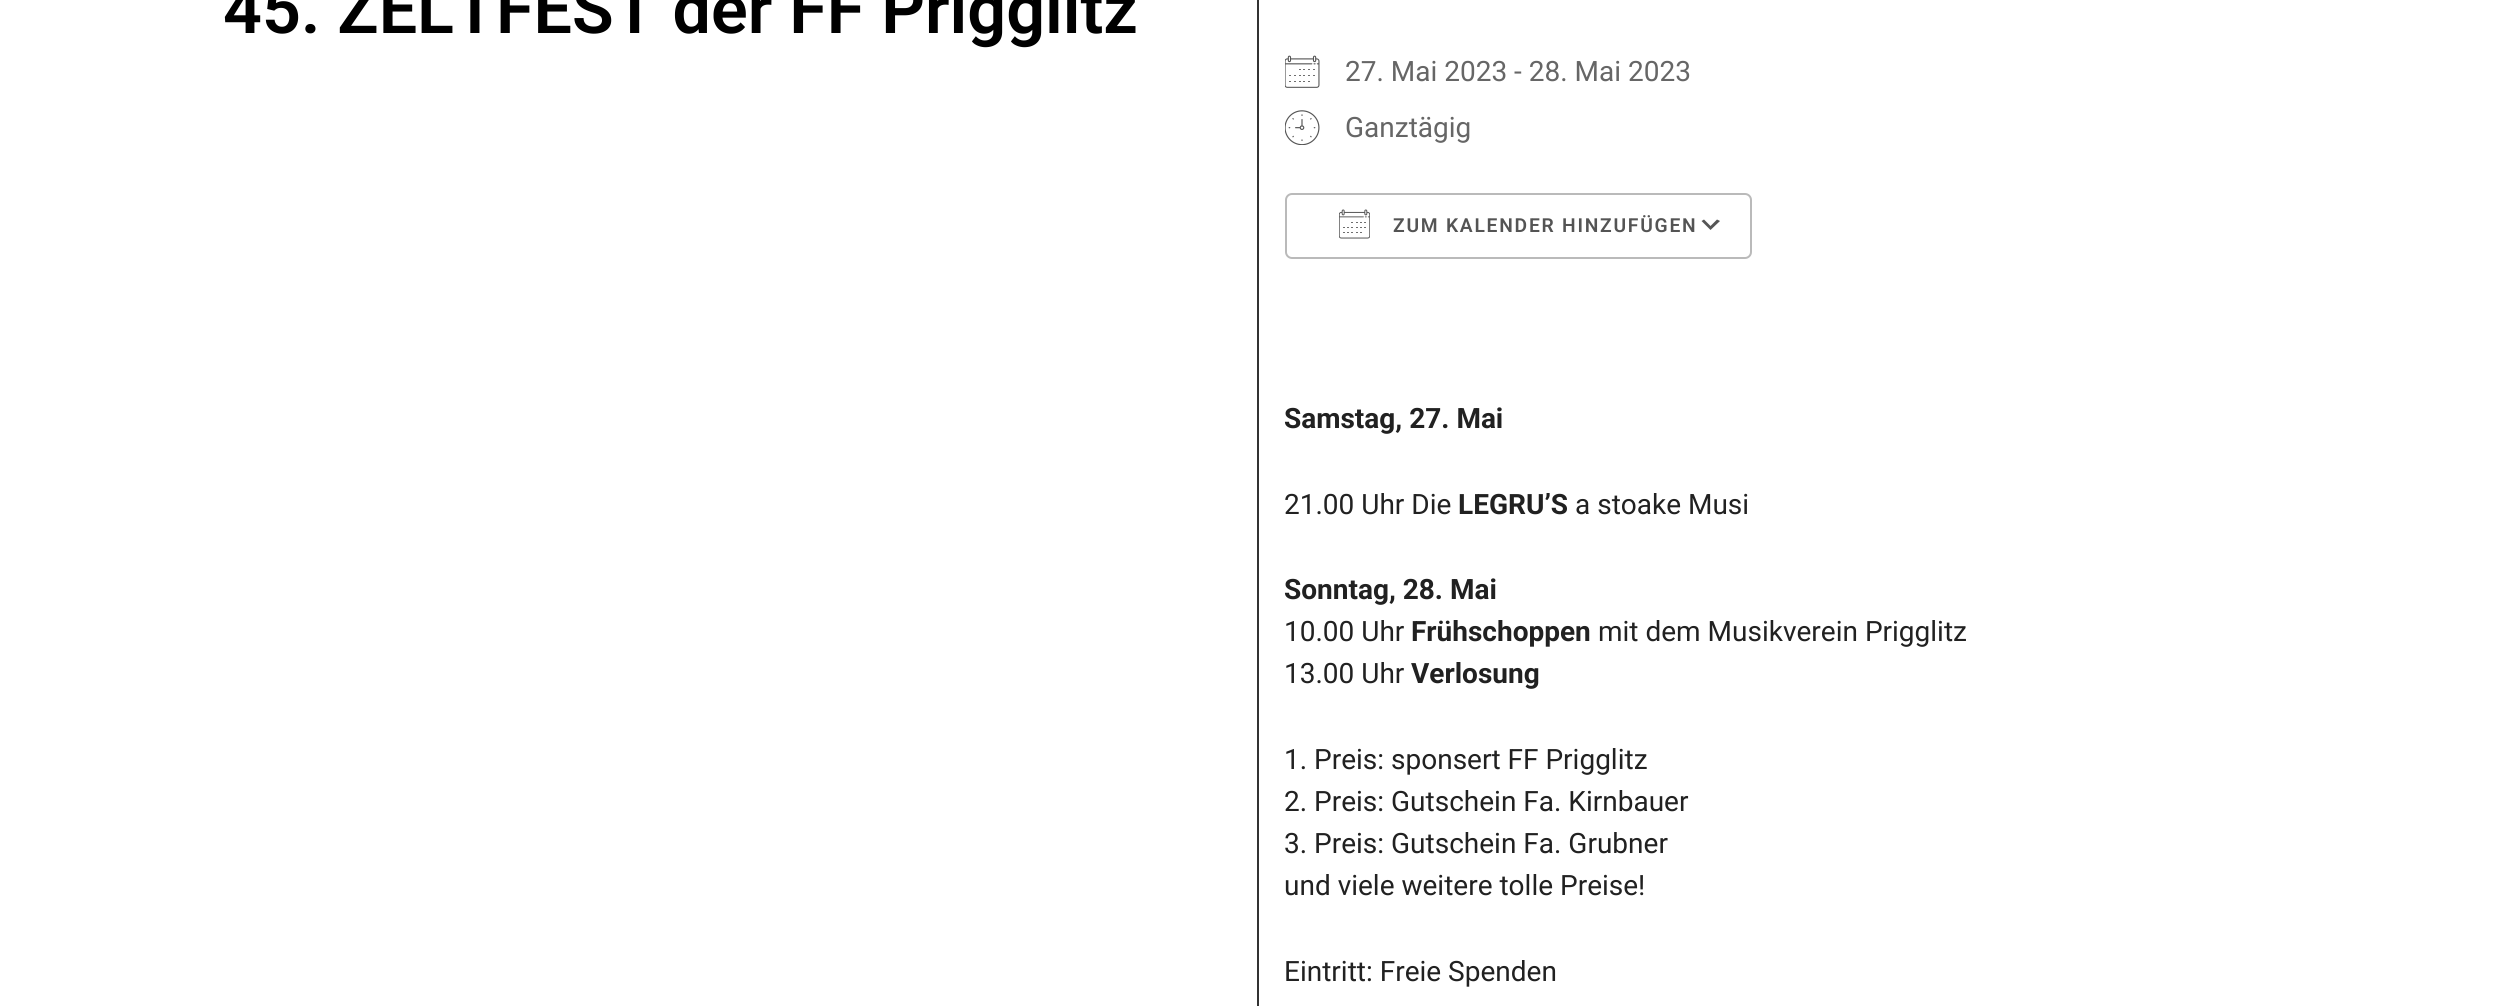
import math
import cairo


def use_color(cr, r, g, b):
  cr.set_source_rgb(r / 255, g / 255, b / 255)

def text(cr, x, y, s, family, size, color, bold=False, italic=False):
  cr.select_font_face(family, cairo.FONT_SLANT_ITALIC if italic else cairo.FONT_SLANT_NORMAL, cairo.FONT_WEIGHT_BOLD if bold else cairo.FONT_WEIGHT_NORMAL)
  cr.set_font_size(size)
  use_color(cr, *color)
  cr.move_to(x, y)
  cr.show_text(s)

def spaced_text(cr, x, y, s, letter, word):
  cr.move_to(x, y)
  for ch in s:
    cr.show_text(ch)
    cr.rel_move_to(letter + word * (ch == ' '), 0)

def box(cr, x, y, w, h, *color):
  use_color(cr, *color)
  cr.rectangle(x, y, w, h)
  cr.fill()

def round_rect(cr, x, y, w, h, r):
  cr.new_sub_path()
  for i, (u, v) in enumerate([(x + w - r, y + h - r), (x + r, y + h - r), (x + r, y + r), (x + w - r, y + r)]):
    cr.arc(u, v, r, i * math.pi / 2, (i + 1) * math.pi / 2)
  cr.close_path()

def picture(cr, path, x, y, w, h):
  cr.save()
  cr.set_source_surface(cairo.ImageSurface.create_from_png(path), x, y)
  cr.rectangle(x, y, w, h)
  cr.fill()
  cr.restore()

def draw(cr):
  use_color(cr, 255, 255, 255)
  cr.paint()
  box(cr, 1257, 0, 2, 1006, 51, 51, 51)
  picture(cr, "img_01.png", 1285, 55, 35, 33)
  picture(cr, "img_02.png", 1285, 110, 35, 35)
  use_color(cr, 85, 85, 85)
  cr.new_path()
  cr.move_to(1704, 219.5)
  cr.line_to(1710.5, 226)
  cr.line_to(1717, 219.5)
  cr.line_to(1720, 221)
  cr.line_to(1710.5, 230)
  cr.line_to(1701.5, 221)
  cr.close_path()
  cr.fill()
  round_rect(cr, 1286, 194, 465, 64, 6)
  use_color(cr, 186, 186, 186)
  cr.stroke()
  picture(cr, "img_03.png", 1339, 209, 31, 30)
  text(cr, 223, 33, "45. ZELTFEST der FF Prigglitz", "Roboto SemiBold", 68.25, (0, 0, 0))
  text(cr, 1345, 81, "27. Mai 2023 - 28. Mai 2023", "Roboto", 28, (102, 102, 102))
  text(cr, 1345, 137, "Ganztägig", "Roboto", 28, (102, 102, 102))
  cr.select_font_face("Roboto SemiBold")
  cr.set_font_size(19.25)
  use_color(cr, 84, 84, 84)
  spaced_text(cr, 1393, 232, "ZUM KALENDER HINZUFÜGEN", 1.75, 0)
  text(cr, 1284, 428, "Samstag, 27. Mai", "Roboto", 28, (33, 33, 33), bold=True)
  text(cr, 1284, 514, "21.00 Uhr Die", "Roboto", 28, (33, 33, 33))
  text(cr, 1458, 514, "LEGRU’S", "Roboto", 28, (33, 33, 33), bold=True)
  text(cr, 1575, 514, "a stoake Musi", "Roboto", 28, (33, 33, 33))
  text(cr, 1284, 599, "Sonntag, 28. Mai", "Roboto", 28, (33, 33, 33), bold=True)
  text(cr, 1284, 641, "10.00 Uhr", "Roboto", 28, (33, 33, 33))
  text(cr, 1411, 641, "Frühschoppen", "Roboto", 28, (33, 33, 33), bold=True)
  text(cr, 1598, 641, "mit dem Musikverein Prigglitz", "Roboto", 28, (33, 33, 33))
  text(cr, 1284, 683, "13.00 Uhr", "Roboto", 28, (33, 33, 33))
  text(cr, 1411, 683, "Verlosung", "Roboto", 28, (33, 33, 33), bold=True)
  text(cr, 1284, 769, "1. Preis: sponsert FF Prigglitz", "Roboto", 28, (33, 33, 33))
  text(cr, 1284, 811, "2. Preis: Gutschein Fa. Kirnbauer", "Roboto", 28, (33, 33, 33))
  text(cr, 1284, 853, "3. Preis: Gutschein Fa. Grubner", "Roboto", 28, (33, 33, 33))
  text(cr, 1284, 895, "und viele weitere tolle Preise!", "Roboto", 28, (33, 33, 33))
  text(cr, 1284, 981, "Eintritt: Freie Spenden", "Roboto", 28, (33, 33, 33))


surface = cairo.ImageSurface(cairo.FORMAT_RGB24, 2510, 1006)
cr = cairo.Context(surface)
options = cairo.FontOptions()
options.set_hint_metrics(cairo.HINT_METRICS_OFF)
options.set_hint_style(cairo.HINT_STYLE_NONE)
cr.set_font_options(options)
cr.set_miter_limit(4)
draw(cr)
surface.write_to_png("out.png")
